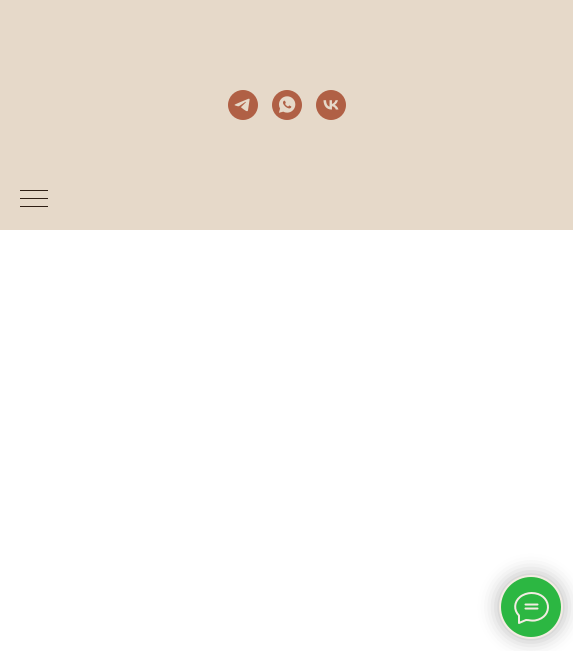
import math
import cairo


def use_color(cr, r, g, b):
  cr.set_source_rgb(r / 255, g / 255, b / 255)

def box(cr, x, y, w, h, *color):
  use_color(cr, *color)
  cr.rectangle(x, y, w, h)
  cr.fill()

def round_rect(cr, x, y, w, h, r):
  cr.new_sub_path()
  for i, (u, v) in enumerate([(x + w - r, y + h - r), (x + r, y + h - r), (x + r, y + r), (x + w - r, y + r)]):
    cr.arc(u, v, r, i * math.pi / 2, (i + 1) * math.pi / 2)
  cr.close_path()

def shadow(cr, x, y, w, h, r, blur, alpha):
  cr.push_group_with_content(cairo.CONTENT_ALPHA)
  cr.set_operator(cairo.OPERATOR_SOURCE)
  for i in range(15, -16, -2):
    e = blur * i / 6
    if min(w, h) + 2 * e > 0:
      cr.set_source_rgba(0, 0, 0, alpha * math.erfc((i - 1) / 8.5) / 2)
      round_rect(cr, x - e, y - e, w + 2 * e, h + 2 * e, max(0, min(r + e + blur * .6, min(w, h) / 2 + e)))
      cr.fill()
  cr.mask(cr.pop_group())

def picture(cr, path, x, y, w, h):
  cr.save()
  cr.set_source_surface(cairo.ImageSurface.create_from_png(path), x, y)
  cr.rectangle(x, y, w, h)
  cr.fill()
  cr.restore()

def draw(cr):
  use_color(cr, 230, 217, 201)
  cr.paint()
  picture(cr, "img_01.png", 228, 90, 30, 30)
  picture(cr, "img_02.png", 272, 90, 30, 30)
  picture(cr, "img_03.png", 316, 90, 30, 30)
  box(cr, 20, 190, 28, 1, 46, 30, 20)
  box(cr, 20, 198, 28, 1, 46, 30, 20)
  box(cr, 20, 206, 28, 1, 46, 30, 20)
  box(cr, 0, 230, 573, 421, 255, 255, 255)
  use_color(cr, 0, 0, 0)
  shadow(cr, 499, 575, 64, 64, 32, 10, 0.3)
  use_color(cr, 44, 183, 66)
  cr.arc(531, 607, 31, 0, 2 * math.pi)
  cr.fill_preserve()
  use_color(cr, 243, 236, 227)
  cr.stroke()
  cr.new_path()
  cr.move_to(525.5, 604.5)
  cr.line_to(537.5, 604.5)
  cr.move_to(525.5, 608.5)
  cr.line_to(537.5, 608.5)
  cr.move_to(519, 615.5)
  cr.curve_to(513.5, 610, 514, 602, 520, 597)
  cr.curve_to(523, 594.5, 527.5, 593, 531.5, 593)
  cr.curve_to(551, 593, 554.5, 617, 535, 620.5)
  cr.curve_to(531, 621, 529.5, 620, 526, 620)
  cr.line_to(519, 623)
  cr.line_to(519, 616)
  cr.close_path()
  cr.set_line_cap(cairo.LINE_CAP_ROUND)
  cr.set_line_join(cairo.LINE_JOIN_ROUND)
  cr.stroke()


surface = cairo.ImageSurface(cairo.FORMAT_RGB24, 573, 651)
cr = cairo.Context(surface)
options = cairo.FontOptions()
options.set_hint_metrics(cairo.HINT_METRICS_OFF)
options.set_hint_style(cairo.HINT_STYLE_NONE)
cr.set_font_options(options)
cr.set_miter_limit(4)
draw(cr)
surface.write_to_png("out.png")
